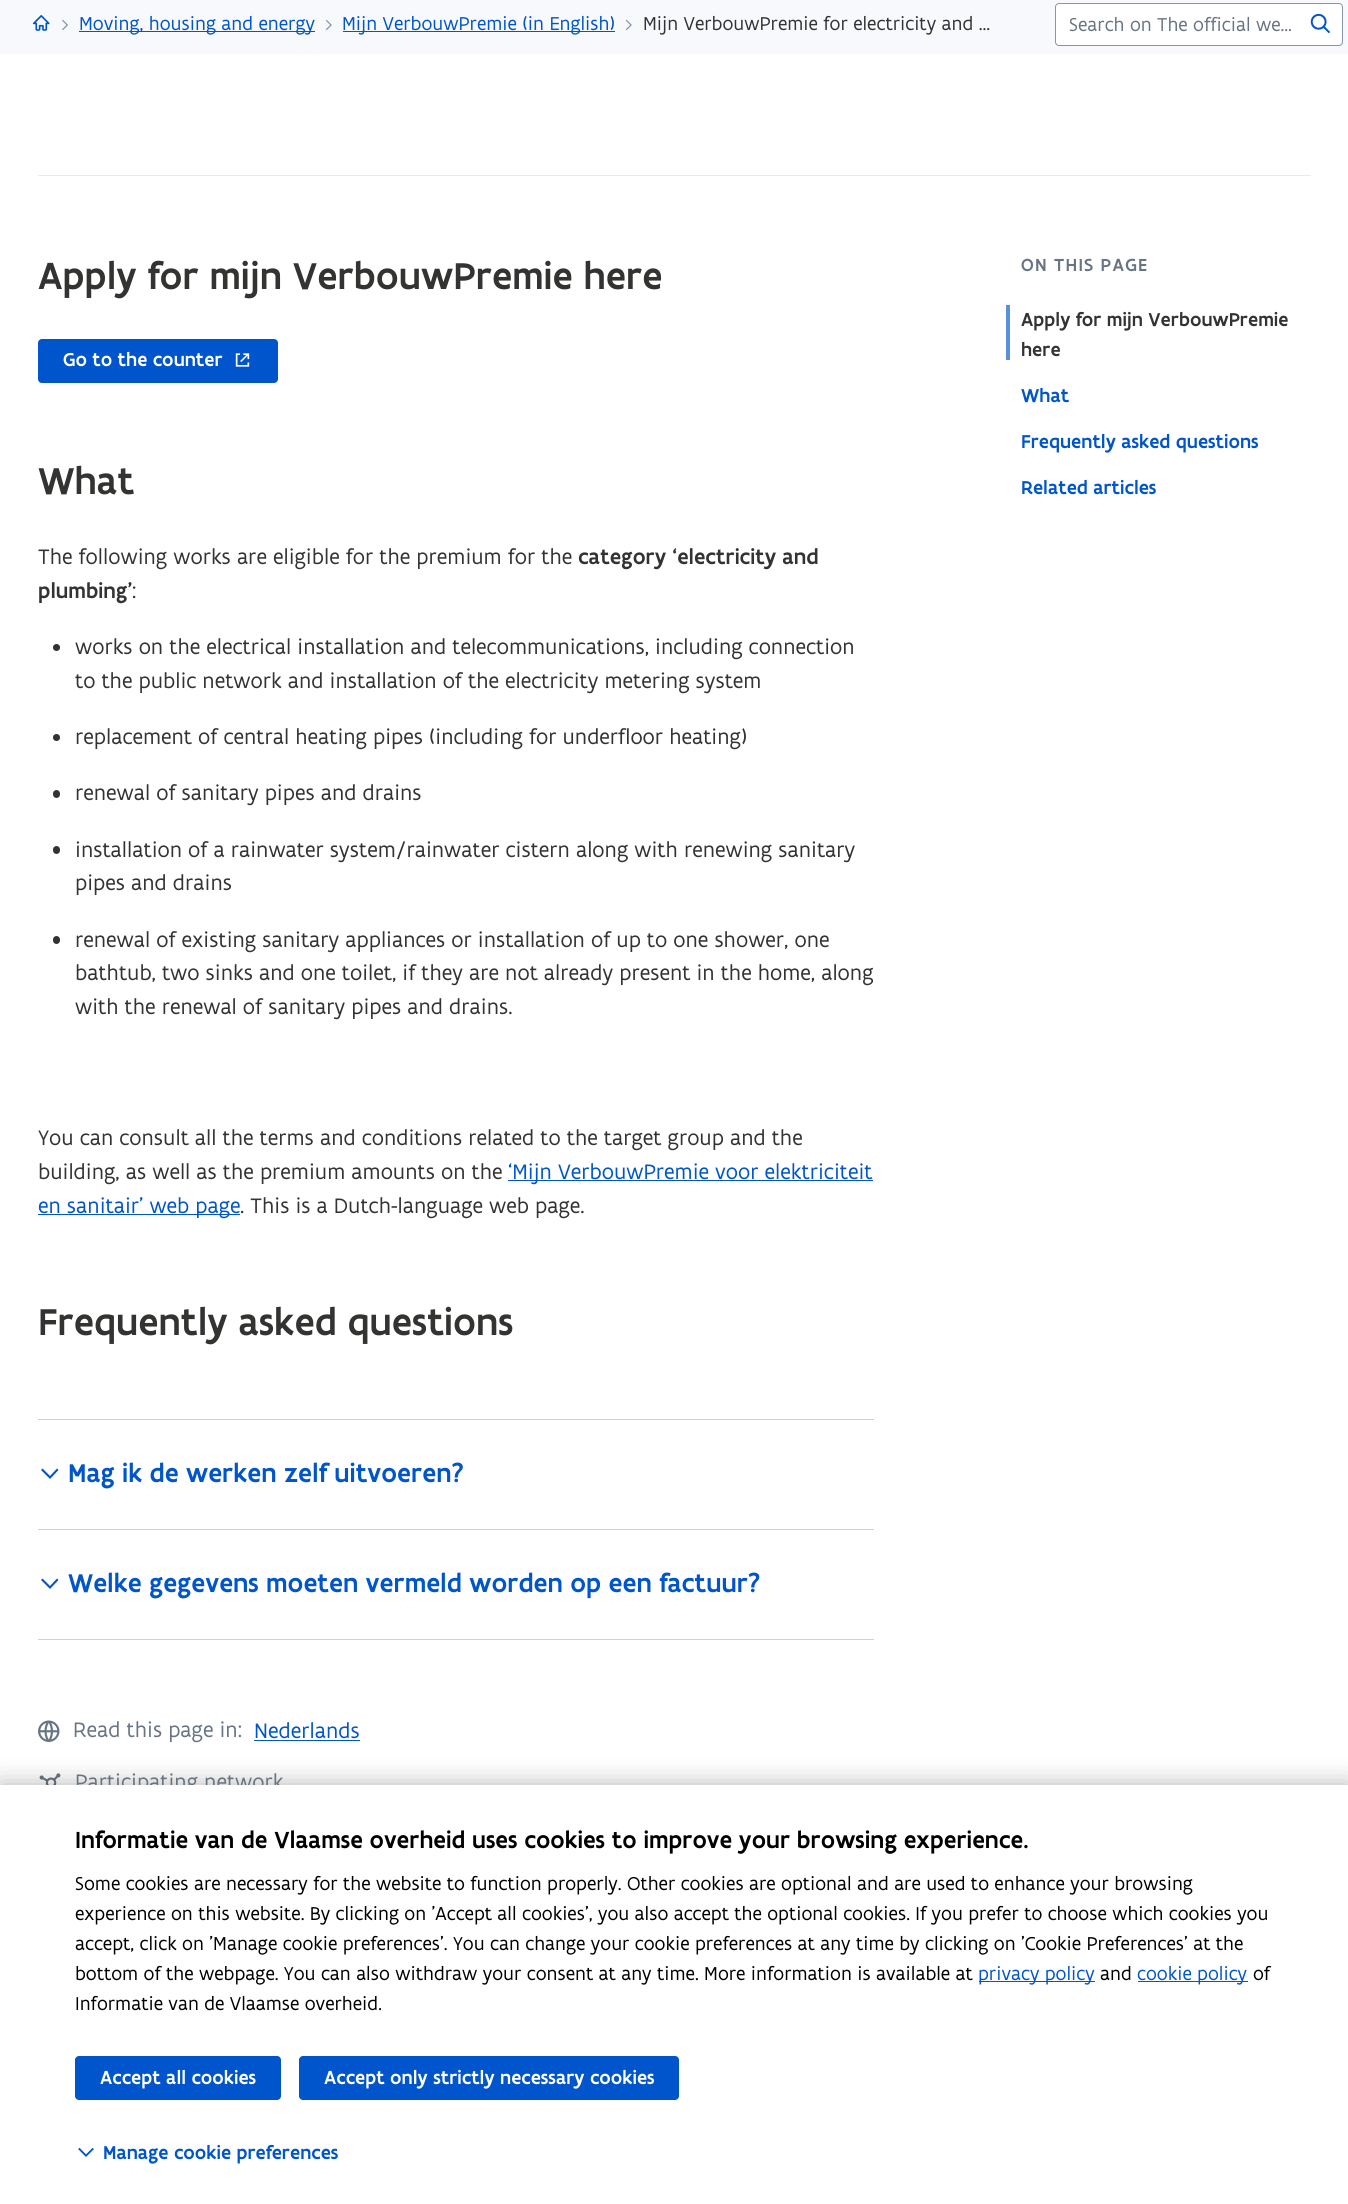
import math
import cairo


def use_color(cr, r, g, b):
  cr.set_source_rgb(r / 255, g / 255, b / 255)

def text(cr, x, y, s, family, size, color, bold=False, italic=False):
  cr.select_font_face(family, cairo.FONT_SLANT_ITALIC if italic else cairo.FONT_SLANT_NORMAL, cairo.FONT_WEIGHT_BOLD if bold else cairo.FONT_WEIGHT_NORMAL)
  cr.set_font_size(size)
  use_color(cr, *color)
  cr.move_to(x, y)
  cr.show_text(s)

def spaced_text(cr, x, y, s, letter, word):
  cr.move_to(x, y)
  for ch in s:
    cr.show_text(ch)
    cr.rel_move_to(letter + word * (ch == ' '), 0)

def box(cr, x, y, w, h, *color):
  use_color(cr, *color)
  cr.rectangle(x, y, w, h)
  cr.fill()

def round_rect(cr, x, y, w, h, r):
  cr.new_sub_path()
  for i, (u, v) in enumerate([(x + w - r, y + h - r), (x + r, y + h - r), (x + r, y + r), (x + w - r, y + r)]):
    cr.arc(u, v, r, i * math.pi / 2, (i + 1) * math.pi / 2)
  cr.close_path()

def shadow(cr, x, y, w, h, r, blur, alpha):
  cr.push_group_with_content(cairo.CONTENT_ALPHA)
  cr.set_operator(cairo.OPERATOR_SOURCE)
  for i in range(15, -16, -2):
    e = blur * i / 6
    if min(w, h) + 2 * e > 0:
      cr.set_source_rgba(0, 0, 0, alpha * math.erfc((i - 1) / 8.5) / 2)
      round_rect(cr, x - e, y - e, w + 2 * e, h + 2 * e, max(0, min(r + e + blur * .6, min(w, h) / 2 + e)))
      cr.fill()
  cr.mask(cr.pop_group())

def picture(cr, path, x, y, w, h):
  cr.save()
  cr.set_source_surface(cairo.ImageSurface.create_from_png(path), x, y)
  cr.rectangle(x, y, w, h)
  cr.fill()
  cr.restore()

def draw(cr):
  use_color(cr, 255, 255, 255)
  cr.paint()
  box(cr, 0, 0, 1348, 54, 247, 249, 252)
  picture(cr, "img_01.png", 32, 15, 18, 16)
  picture(cr, "img_02.png", 62, 19, 6, 12)
  box(cr, 79, 31, 236, 1, 0, 85, 204)
  picture(cr, "img_03.png", 325, 19, 7, 12)
  box(cr, 343, 31, 272, 1, 0, 85, 204)
  picture(cr, "img_03.png", 625, 19, 7, 12)
  use_color(cr, 255, 255, 255)
  round_rect(cr, 1055.5, 3.5, 287, 42, 3.5)
  cr.fill_preserve()
  use_color(cr, 134, 149, 168)
  cr.set_line_width(1)
  cr.stroke()
  picture(cr, "img_04.png", 1310, 13, 21, 21)
  box(cr, 38, 175, 1273, 1, 232, 235, 238)
  use_color(cr, 0, 85, 204)
  round_rect(cr, 38, 339, 240, 44, 4)
  cr.fill()
  picture(cr, "img_05.png", 235, 353, 15, 14)
  use_color(cr, 51, 51, 50)
  cr.arc(56.5, 647.5, 3.5, 0, 2 * math.pi)
  cr.fill()
  cr.arc(56.5, 737.5, 3.5, 0, 2 * math.pi)
  cr.fill()
  round_rect(cr, 53, 790, 7, 8, 3.5)
  cr.fill()
  round_rect(cr, 53, 846, 7, 8, 3.5)
  cr.fill()
  round_rect(cr, 53, 936, 7, 8, 3.5)
  cr.fill()
  box(cr, 508, 1180, 365, 1, 0, 85, 204)
  box(cr, 38, 1214, 202, 1, 0, 85, 204)
  box(cr, 38, 1419, 836, 1, 203, 210, 218)
  box(cr, 38, 1529, 836, 1, 203, 210, 218)
  use_color(cr, 0, 85, 204)
  cr.new_path()
  cr.move_to(41, 1470)
  cr.line_to(42.5, 1468.5)
  cr.line_to(50, 1476)
  cr.line_to(57, 1468.5)
  cr.line_to(58.5, 1470)
  cr.line_to(50, 1479)
  cr.close_path()
  cr.fill()
  box(cr, 38, 1639, 836, 1, 203, 210, 218)
  use_color(cr, 0, 85, 204)
  cr.new_path()
  cr.move_to(41, 1580)
  cr.line_to(42.5, 1578.5)
  cr.line_to(50, 1586)
  cr.line_to(57, 1578.5)
  cr.line_to(58.5, 1580)
  cr.line_to(50, 1589)
  cr.close_path()
  cr.fill()
  box(cr, 1006, 305, 4, 55, 89, 144, 222)
  picture(cr, "img_06.png", 38, 1720, 22, 22)
  box(cr, 254, 1740, 106, 1, 0, 85, 204)
  picture(cr, "img_07.png", 39, 1773, 22, 12)
  use_color(cr, 0, 0, 0)
  shadow(cr, 0, 1785, 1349, 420, 0, 13, 0.3)
  text(cr, 79, 30, "Moving, housing and energy", "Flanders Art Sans", 20, (0, 85, 204))
  text(cr, 342, 30, "Mijn VerbouwPremie (in English)", "Flanders Art Sans", 20, (0, 85, 204))
  text(cr, 643, 30, "Mijn VerbouwPremie for electricity and …", "Flanders Art Sans", 20, (51, 51, 50))
  text(cr, 1069, 31, "Search on The official we…", "Flanders Art Sans", 20, (104, 116, 131))
  text(cr, 38, 289, "Apply for mijn VerbouwPremie here", "Flanders Art Sans Medium", 40, (51, 51, 50))
  text(cr, 63, 366, "Go to the counter", "Flanders Art Sans Medium", 20, (255, 255, 255))
  text(cr, 38, 494, "What", "Flanders Art Sans Medium", 40, (51, 51, 50))
  text(cr, 38, 564, "The following works are eligible for the premium for the", "Flanders Art Sans", 22.5, (51, 51, 50))
  text(cr, 578, 564, "category ‘electricity and", "Flanders Art Sans Medium", 22.5, (51, 51, 50))
  text(cr, 38, 598, "plumbing’", "Flanders Art Sans Medium", 22.5, (51, 51, 50))
  text(cr, 132, 598, ":", "Flanders Art Sans", 22.5, (51, 51, 50))
  text(cr, 75, 654, "works on the electrical installation and telecommunications, including connection", "Flanders Art Sans", 22.5, (51, 51, 50))
  text(cr, 75, 688, "to the public network and installation of the electricity metering system", "Flanders Art Sans", 22.5, (51, 51, 50))
  text(cr, 75, 744, "replacement of central heating pipes (including for underfloor heating)", "Flanders Art Sans", 22.5, (51, 51, 50))
  text(cr, 75, 800, "renewal of sanitary pipes and drains", "Flanders Art Sans", 22.5, (51, 51, 50))
  text(cr, 75, 857, "installation of a rainwater system/rainwater cistern along with renewing sanitary", "Flanders Art Sans", 22.5, (51, 51, 50))
  text(cr, 75, 890, "pipes and drains", "Flanders Art Sans", 22.5, (51, 51, 50))
  text(cr, 75, 947, "renewal of existing sanitary appliances or installation of up to one shower, one", "Flanders Art Sans", 22.5, (51, 51, 50))
  text(cr, 75, 980, "bathtub, two sinks and one toilet, if they are not already present in the home, along", "Flanders Art Sans", 22.5, (51, 51, 50))
  text(cr, 75, 1014, "with the renewal of sanitary pipes and drains.", "Flanders Art Sans", 22.5, (51, 51, 50))
  text(cr, 38, 1145, "You can consult all the terms and conditions related to the target group and the", "Flanders Art Sans", 22.5, (51, 51, 50))
  text(cr, 38, 1179, "building, as well as the premium amounts on the", "Flanders Art Sans", 22.5, (51, 51, 50))
  text(cr, 508, 1179, "‘Mijn VerbouwPremie voor elektriciteit", "Flanders Art Sans", 22.5, (0, 85, 204))
  text(cr, 38, 1213, "en sanitair’ web page", "Flanders Art Sans", 22.5, (0, 85, 204))
  text(cr, 240, 1213, ". This is a Dutch-language web page.", "Flanders Art Sans", 22.5, (51, 51, 50))
  text(cr, 38, 1335, "Frequently asked questions", "Flanders Art Sans Medium", 40, (51, 51, 50))
  text(cr, 68, 1482, "Mag ik de werken zelf uitvoeren?", "Flanders Art Sans Medium", 27.5, (0, 85, 204))
  text(cr, 68, 1592, "Welke gegevens moeten vermeld worden op een factuur?", "Flanders Art Sans Medium", 27.5, (0, 85, 204))
  cr.set_font_size(18.75)
  use_color(cr, 104, 116, 131)
  spaced_text(cr, 1021, 271, "ON THIS PAGE", 1.25, 0)
  text(cr, 1021, 326, "Apply for mijn VerbouwPremie", "Flanders Art Sans Medium", 20, (51, 51, 50))
  text(cr, 1021, 356, "here", "Flanders Art Sans Medium", 20, (51, 51, 50))
  text(cr, 1021, 402, "What", "Flanders Art Sans Medium", 20, (0, 85, 204))
  text(cr, 1021, 448, "Frequently asked questions", "Flanders Art Sans Medium", 20, (0, 85, 204))
  text(cr, 1021, 494, "Related articles", "Flanders Art Sans Medium", 20, (0, 85, 204))
  text(cr, 73, 1737, "Read this page in:", "Flanders Art Sans", 22.5, (104, 116, 131))
  text(cr, 254, 1738, "Nederlands", "Flanders Art Sans", 22.5, (0, 85, 204))
  text(cr, 75, 1789, "Participating network", "Flanders Art Sans", 22.5, (104, 116, 131))
  box(cr, 0, 1785, 1348, 419, 255, 255, 255)
  text(cr, 75, 1848, "Informatie van de Vlaamse overheid uses cookies to improve your browsing experience.", "Flanders Art Sans Medium", 25, (0, 0, 0))
  text(cr, 75, 1890, "Some cookies are necessary for the website to function properly. Other cookies are optional and are used to enhance your browsing", "Flanders Art Sans", 20, (0, 0, 0))
  text(cr, 75, 1920, "experience on this website. By clicking on 'Accept all cookies', you also accept the optional cookies. If you prefer to choose which cookies you", "Flanders Art Sans", 20, (0, 0, 0))
  text(cr, 75, 1950, "accept, click on 'Manage cookie preferences'. You can change your cookie preferences at any time by clicking on 'Cookie Preferences' at the", "Flanders Art Sans", 20, (0, 0, 0))
  text(cr, 75, 1980, "bottom of the webpage. You can also withdraw your consent at any time. More information is available at", "Flanders Art Sans", 20, (0, 0, 0))
  box(cr, 979, 1981, 116, 1, 0, 85, 204)
  text(cr, 978, 1980, "privacy policy", "Flanders Art Sans", 20, (0, 85, 204))
  text(cr, 1100, 1980, "and", "Flanders Art Sans", 20, (0, 0, 0))
  box(cr, 1138, 1981, 110, 1, 0, 85, 204)
  text(cr, 1137, 1980, "cookie policy", "Flanders Art Sans", 20, (0, 85, 204))
  text(cr, 1253, 1980, "of", "Flanders Art Sans", 20, (0, 0, 0))
  text(cr, 75, 2010, "Informatie van de Vlaamse overheid.", "Flanders Art Sans", 20, (0, 0, 0))
  use_color(cr, 0, 85, 204)
  round_rect(cr, 75, 2056, 206, 44, 4)
  cr.fill()
  text(cr, 100, 2084, "Accept all cookies", "Flanders Art Sans Medium", 20, (255, 255, 255))
  use_color(cr, 0, 85, 204)
  round_rect(cr, 299, 2056, 380, 44, 4)
  cr.fill()
  text(cr, 324, 2084, "Accept only strictly necessary cookies", "Flanders Art Sans Medium", 20, (255, 255, 255))
  picture(cr, "img_08.png", 78, 2147, 16, 10)
  text(cr, 103, 2159, "Manage cookie preferences", "Flanders Art Sans Medium", 20, (0, 85, 204))


surface = cairo.ImageSurface(cairo.FORMAT_RGB24, 1348, 2204)
cr = cairo.Context(surface)
options = cairo.FontOptions()
options.set_hint_metrics(cairo.HINT_METRICS_OFF)
options.set_hint_style(cairo.HINT_STYLE_NONE)
cr.set_font_options(options)
cr.set_miter_limit(4)
draw(cr)
surface.write_to_png("out.png")
